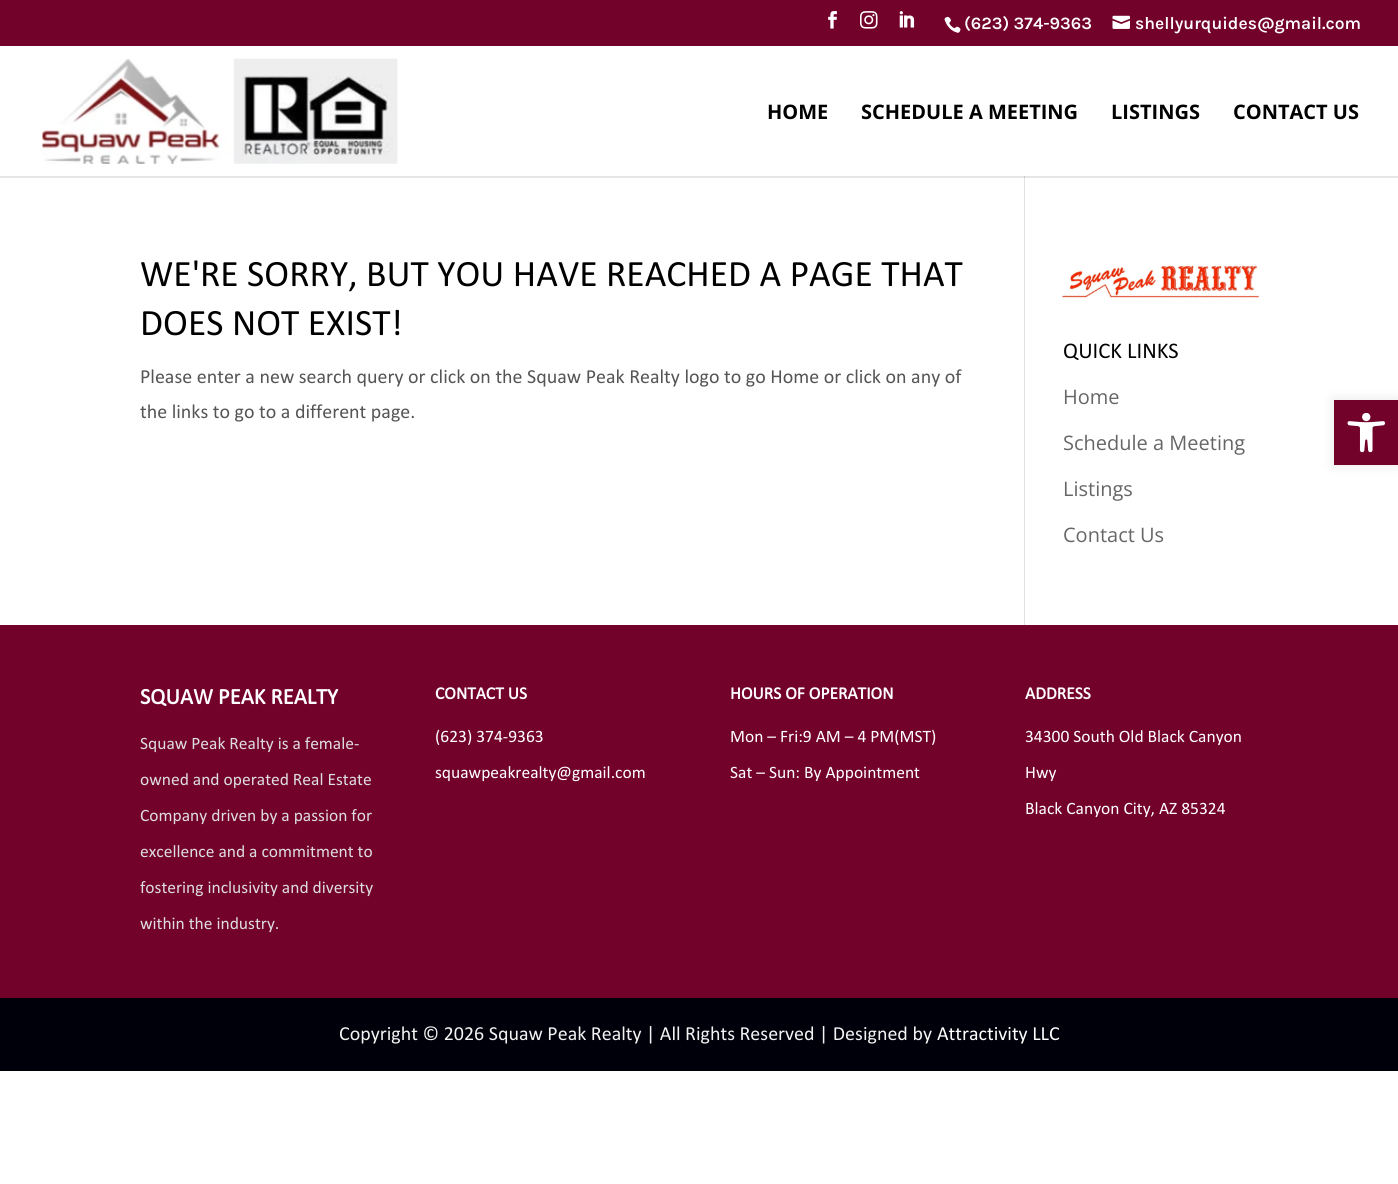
import math
import cairo


def use_color(cr, r, g, b):
  cr.set_source_rgb(r / 255, g / 255, b / 255)

def text(cr, x, y, s, family, size, color, bold=False, italic=False):
  cr.select_font_face(family, cairo.FONT_SLANT_ITALIC if italic else cairo.FONT_SLANT_NORMAL, cairo.FONT_WEIGHT_BOLD if bold else cairo.FONT_WEIGHT_NORMAL)
  cr.set_font_size(size)
  use_color(cr, *color)
  cr.move_to(x, y)
  cr.show_text(s)

def box(cr, x, y, w, h, *color):
  use_color(cr, *color)
  cr.rectangle(x, y, w, h)
  cr.fill()

def round_rect(cr, x, y, w, h, r):
  cr.new_sub_path()
  for i, (u, v) in enumerate([(x + w - r, y + h - r), (x + r, y + h - r), (x + r, y + r), (x + w - r, y + r)]):
    cr.arc(u, v, r, i * math.pi / 2, (i + 1) * math.pi / 2)
  cr.close_path()

def shadow(cr, x, y, w, h, r, blur, alpha):
  cr.push_group_with_content(cairo.CONTENT_ALPHA)
  cr.set_operator(cairo.OPERATOR_SOURCE)
  for i in range(15, -16, -2):
    e = blur * i / 6
    if min(w, h) + 2 * e > 0:
      cr.set_source_rgba(0, 0, 0, alpha * math.erfc((i - 1) / 8.5) / 2)
      round_rect(cr, x - e, y - e, w + 2 * e, h + 2 * e, max(0, min(r + e + blur * .6, min(w, h) / 2 + e)))
      cr.fill()
  cr.mask(cr.pop_group())

def picture(cr, path, x, y, w, h):
  cr.save()
  cr.set_source_surface(cairo.ImageSurface.create_from_png(path), x, y)
  cr.rectangle(x, y, w, h)
  cr.fill()
  cr.restore()

def draw(cr):
  use_color(cr, 255, 255, 255)
  cr.paint()
  box(cr, 0, 0, 1398, 46, 115, 2, 43)
  picture(cr, "img_01.png", 828, 11, 9, 18)
  picture(cr, "img_02.png", 860, 11, 18, 18)
  picture(cr, "img_03.png", 899, 11, 16, 17)
  picture(cr, "img_04.png", 944, 16, 17, 17)
  picture(cr, "img_05.png", 1112, 15, 18, 14)
  box(cr, 1024, 176, 1, 449, 226, 226, 226)
  cr.set_source_rgba(0, 0, 0, 0.1)
  cr.new_path()
  cr.move_to(0, 176)
  cr.line_to(0, 178)
  cr.line_to(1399, 178)
  cr.line_to(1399, 48)
  cr.line_to(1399, 176)
  cr.close_path()
  cr.fill()
  picture(cr, "img_06.png", 42, 58, 356, 106)
  picture(cr, "img_07.png", 1062, 263, 197, 36)
  box(cr, 0, 625, 1398, 373, 115, 2, 43)
  box(cr, 0, 998, 1398, 73, 0, 0, 10)
  use_color(cr, 0, 0, 0)
  shadow(cr, 1334, 400, 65, 65, 0, 6, 0.1)
  box(cr, 1334, 400, 64, 65, 115, 2, 43)
  picture(cr, "img_08.png", 1347, 413, 38, 40)
  text(cr, 964, 29, "(623) 374-9363", "Karla SemiBold", 17.5, (255, 255, 255))
  text(cr, 1135, 29, "shellyurquides@gmail.com", "Karla SemiBold", 17.5, (255, 255, 255))
  text(cr, 767, 119, "HOME", "Open Sans", 20, (0, 0, 0), bold=True)
  text(cr, 861, 119, "SCHEDULE A MEETING", "Open Sans", 20, (0, 0, 0), bold=True)
  text(cr, 1111, 119, "LISTINGS", "Open Sans", 20, (0, 0, 0), bold=True)
  text(cr, 1233, 119, "CONTACT US", "Open Sans", 20, (0, 0, 0), bold=True)
  text(cr, 140, 286, "WE'RE SORRY, BUT YOU HAVE REACHED A PAGE THAT", "Calibri", 37.5, (0, 0, 0))
  text(cr, 140, 335, "DOES NOT EXIST!", "Calibri", 37.5, (0, 0, 0))
  text(cr, 140, 383, "Please enter a new search query or click on the Squaw Peak Realty logo to go Home or click on any of", "Calibri", 20, (85, 85, 85))
  text(cr, 140, 418, "the links to go to a different page.", "Calibri", 20, (85, 85, 85))
  text(cr, 1063, 358, "QUICK LINKS", "Calibri", 22.5, (0, 0, 0))
  text(cr, 1063, 404, "Home", "Open Sans", 20, (102, 102, 102))
  text(cr, 1063, 450, "Schedule a Meeting", "Open Sans", 20, (102, 102, 102))
  text(cr, 1063, 496, "Listings", "Open Sans", 20, (102, 102, 102))
  text(cr, 1063, 542, "Contact Us", "Open Sans", 20, (102, 102, 102))
  text(cr, 140, 704, "SQUAW PEAK REALTY", "Calibri", 22.5, (255, 255, 255), bold=True)
  text(cr, 140, 749, "Squaw Peak Realty is a female-", "Calibri", 17.5, (221, 221, 221))
  text(cr, 140, 785, "owned and operated Real Estate", "Calibri", 17.5, (221, 221, 221))
  text(cr, 140, 821, "Company driven by a passion for", "Calibri", 17.5, (221, 221, 221))
  text(cr, 140, 857, "excellence and a commitment to", "Calibri", 17.5, (221, 221, 221))
  text(cr, 140, 893, "fostering inclusivity and diversity", "Calibri", 17.5, (221, 221, 221))
  text(cr, 140, 929, "within the industry.", "Calibri", 17.5, (221, 221, 221))
  text(cr, 435, 699, "CONTACT US", "Calibri", 17.5, (255, 255, 255), bold=True)
  text(cr, 435, 742, "(623) 374-9363", "Calibri", 17.5, (255, 255, 255))
  text(cr, 435, 778, "squawpeakrealty@gmail.com", "Calibri", 17.5, (255, 255, 255))
  text(cr, 730, 699, "HOURS OF OPERATION", "Calibri", 17.5, (255, 255, 255), bold=True)
  text(cr, 730, 742, "Mon – Fri:9 AM – 4 PM(MST)", "Calibri", 17.5, (255, 255, 255))
  text(cr, 730, 778, "Sat – Sun: By Appointment", "Calibri", 17.5, (255, 255, 255))
  text(cr, 1025, 699, "ADDRESS", "Calibri", 17.5, (255, 255, 255), bold=True)
  text(cr, 1025, 742, "34300 South Old Black Canyon", "Calibri", 17.5, (255, 255, 255))
  text(cr, 1025, 778, "Hwy", "Calibri", 17.5, (255, 255, 255))
  text(cr, 1025, 814, "Black Canyon City, AZ 85324", "Calibri", 17.5, (255, 255, 255))
  text(cr, 339, 1040, "Copyright © 2026 Squaw Peak Realty | All Rights Reserved | Designed by", "Calibri", 20, (242, 242, 242))
  text(cr, 937, 1040, "Attractivity LLC", "Calibri", 20, (255, 255, 255))


surface = cairo.ImageSurface(cairo.FORMAT_RGB24, 1398, 1184)
cr = cairo.Context(surface)
options = cairo.FontOptions()
options.set_hint_metrics(cairo.HINT_METRICS_OFF)
options.set_hint_style(cairo.HINT_STYLE_NONE)
cr.set_font_options(options)
cr.set_miter_limit(4)
draw(cr)
surface.write_to_png("out.png")
